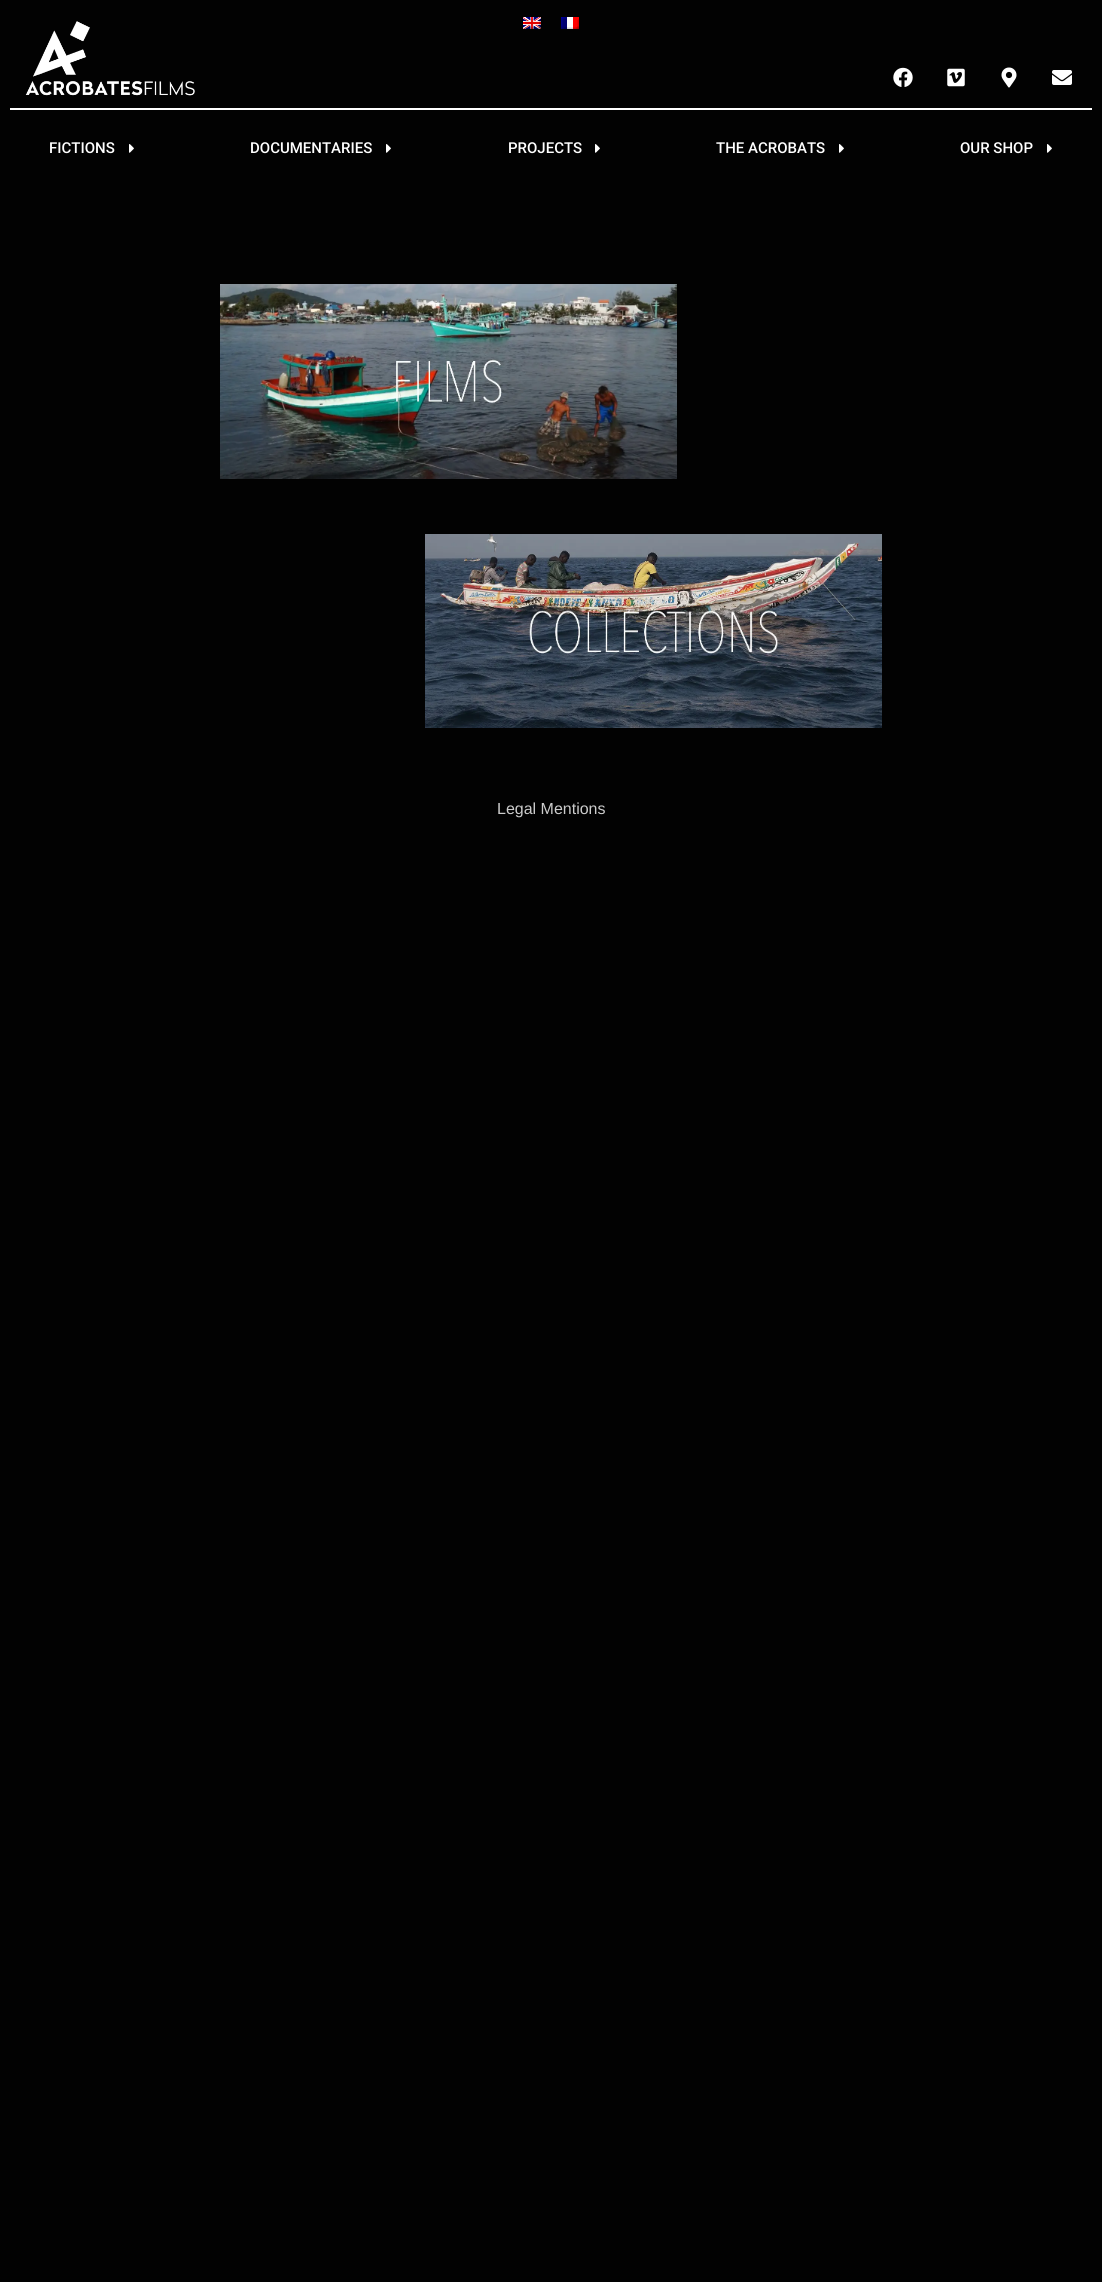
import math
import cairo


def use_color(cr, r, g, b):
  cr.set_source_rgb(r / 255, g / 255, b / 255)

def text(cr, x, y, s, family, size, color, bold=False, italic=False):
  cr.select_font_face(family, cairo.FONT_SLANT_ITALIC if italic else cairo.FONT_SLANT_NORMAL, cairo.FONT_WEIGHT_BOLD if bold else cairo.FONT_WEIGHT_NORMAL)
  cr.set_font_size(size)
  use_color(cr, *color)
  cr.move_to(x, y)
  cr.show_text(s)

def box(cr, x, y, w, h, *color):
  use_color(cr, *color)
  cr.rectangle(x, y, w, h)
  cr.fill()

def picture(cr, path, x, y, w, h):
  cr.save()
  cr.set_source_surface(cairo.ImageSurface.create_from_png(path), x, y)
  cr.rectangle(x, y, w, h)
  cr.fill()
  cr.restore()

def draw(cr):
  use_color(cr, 2, 2, 2)
  cr.paint()
  picture(cr, "img_01.png", 523, 17, 18, 12)
  picture(cr, "img_02.png", 561, 17, 18, 12)
  picture(cr, "img_03.png", 25, 21, 170, 75)
  picture(cr, "img_04.png", 893, 67, 20, 20)
  picture(cr, "img_05.png", 947, 68, 18, 19)
  picture(cr, "img_06.png", 1001, 67, 16, 21)
  picture(cr, "img_07.png", 1052, 70, 20, 15)
  box(cr, 10, 108, 1082, 2, 255, 255, 255)
  picture(cr, "img_08.png", 129, 144, 5, 9)
  picture(cr, "img_08.png", 386, 144, 5, 9)
  picture(cr, "img_08.png", 595, 144, 5, 9)
  picture(cr, "img_08.png", 839, 144, 5, 9)
  picture(cr, "img_08.png", 1047, 144, 5, 9)
  picture(cr, "img_09.png", 220, 284, 457, 195)
  picture(cr, "img_10.png", 425, 534, 457, 194)
  text(cr, 49, 153, "FICTIONS", "Roboto Medium", 15, (255, 255, 255))
  text(cr, 250, 153, "DOCUMENTARIES", "Roboto Medium", 15, (255, 255, 255))
  text(cr, 508, 153, "PROJECTS", "Roboto Medium", 15, (255, 255, 255))
  text(cr, 716, 153, "THE ACROBATS", "Roboto Medium", 15, (255, 255, 255))
  text(cr, 960, 153, "OUR SHOP", "Roboto Medium", 15, (255, 255, 255))
  text(cr, 497, 814, "Legal Mentions", "Liberation Sans", 16, (204, 204, 204))


surface = cairo.ImageSurface(cairo.FORMAT_RGB24, 1102, 2282)
cr = cairo.Context(surface)
options = cairo.FontOptions()
options.set_hint_metrics(cairo.HINT_METRICS_OFF)
options.set_hint_style(cairo.HINT_STYLE_NONE)
cr.set_font_options(options)
cr.set_miter_limit(4)
draw(cr)
surface.write_to_png("out.png")
